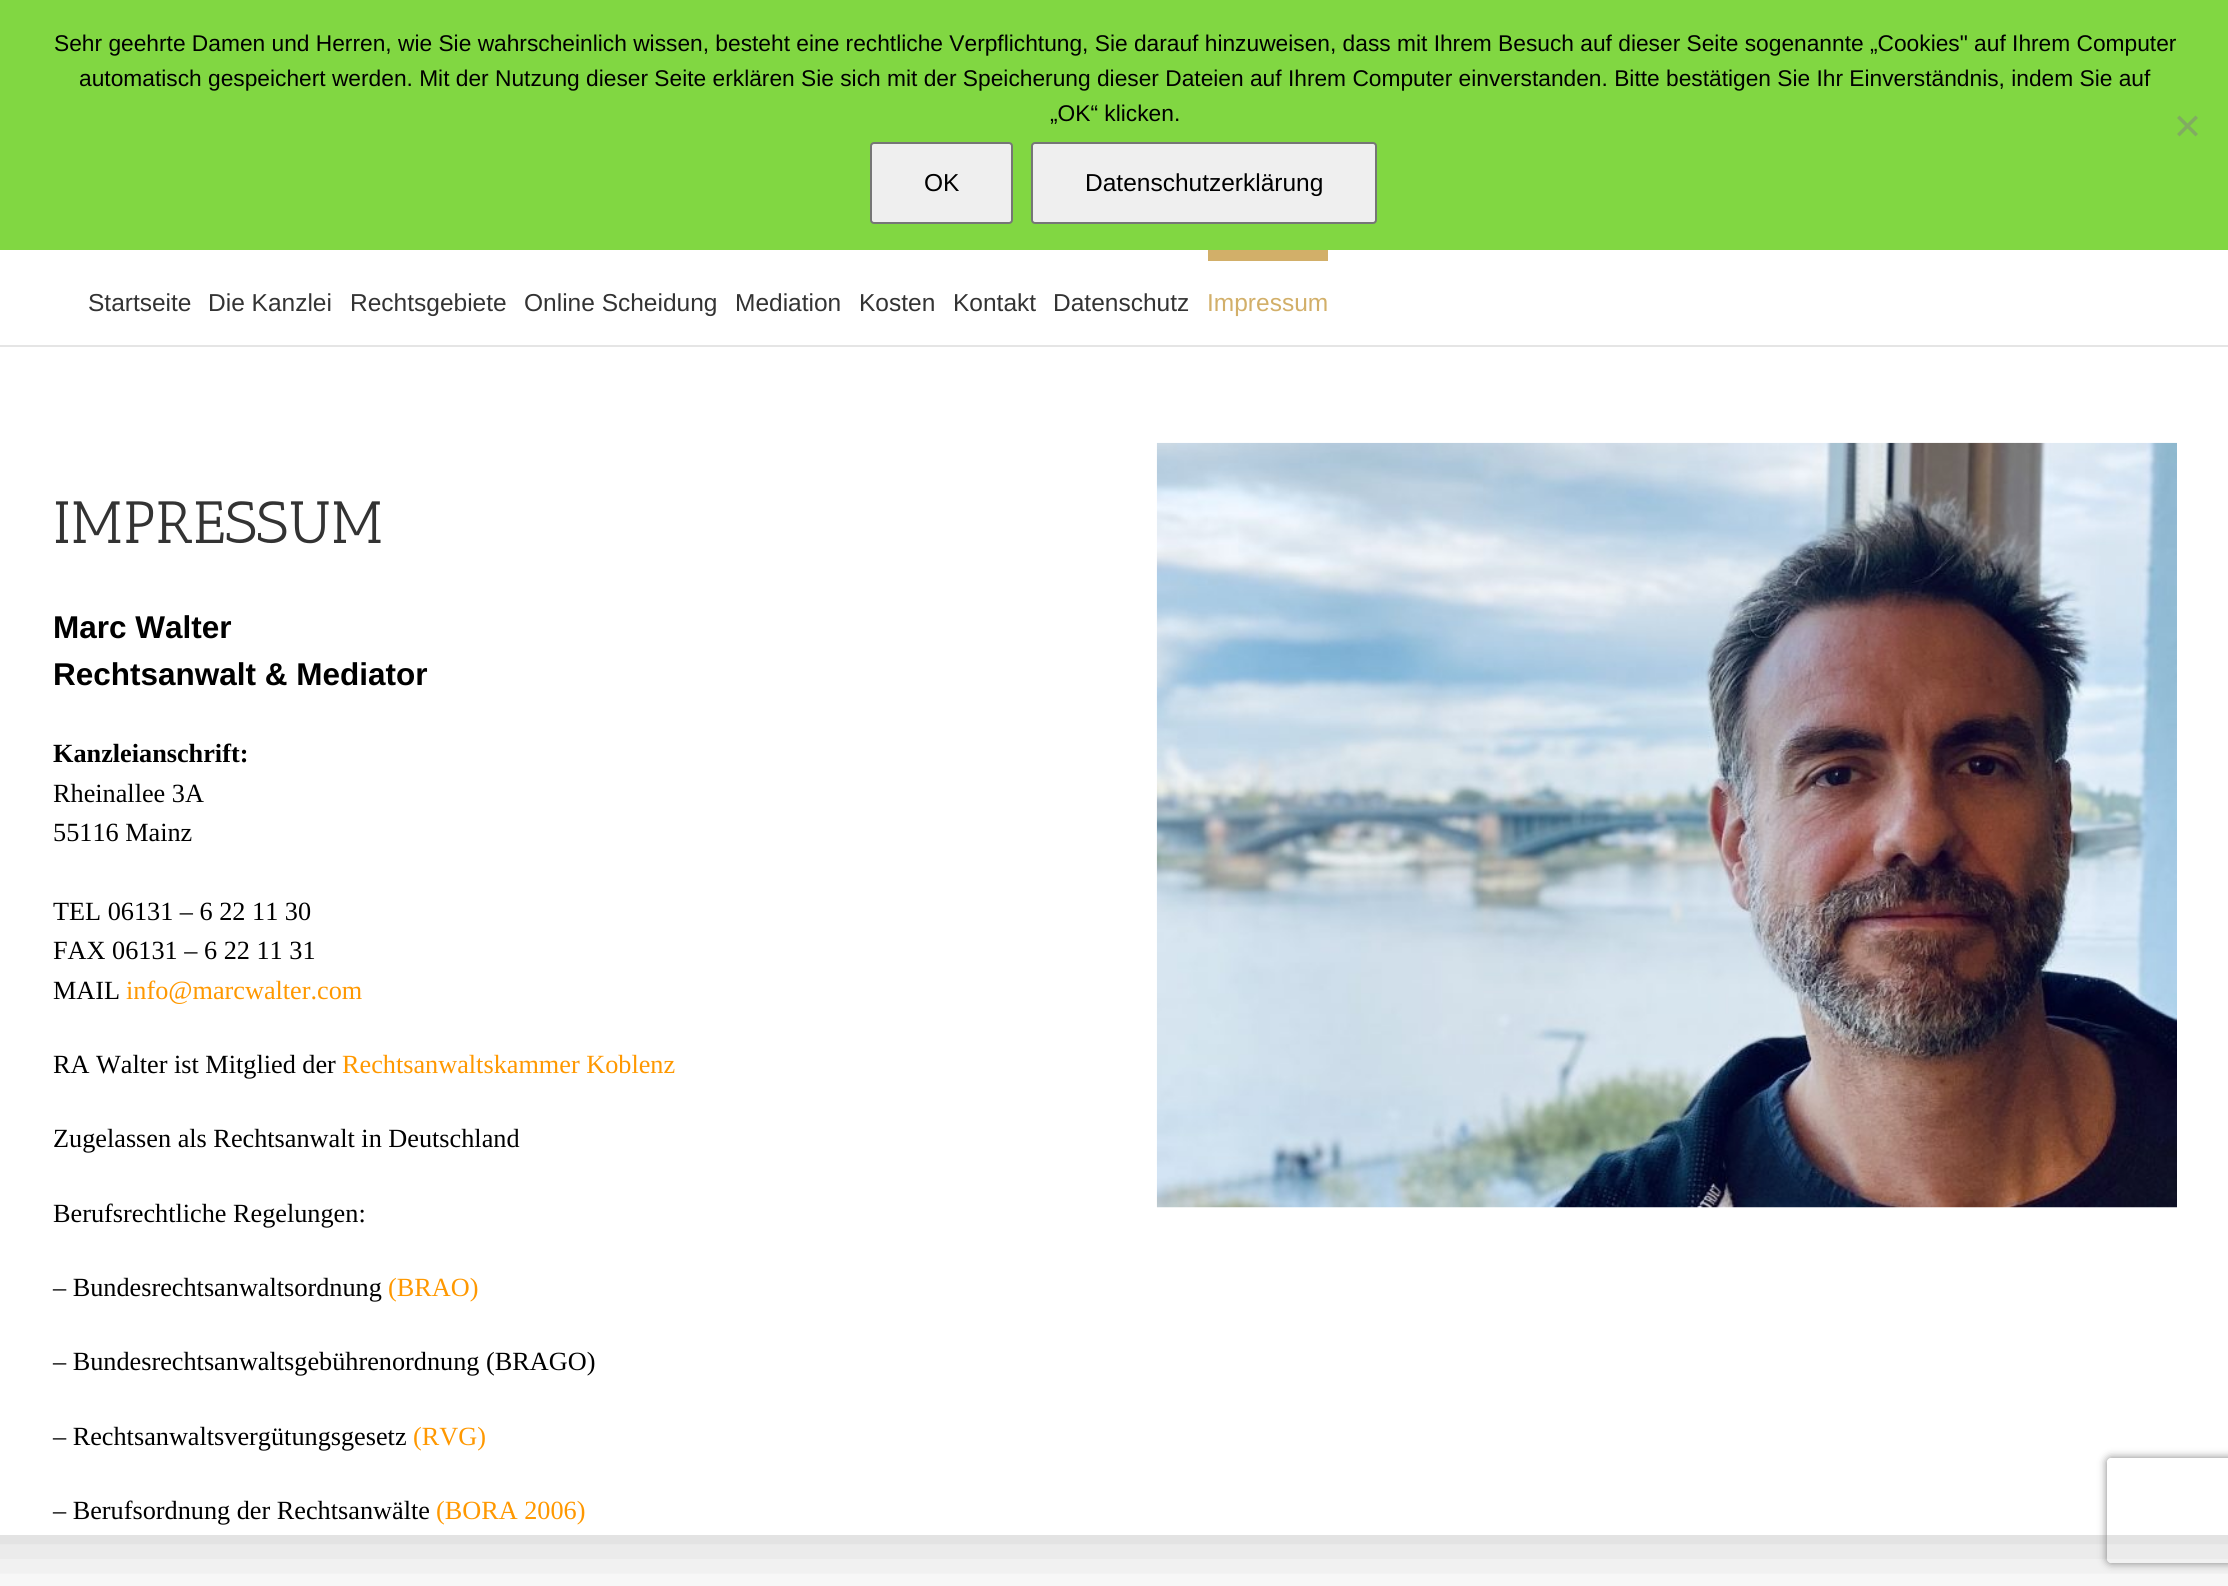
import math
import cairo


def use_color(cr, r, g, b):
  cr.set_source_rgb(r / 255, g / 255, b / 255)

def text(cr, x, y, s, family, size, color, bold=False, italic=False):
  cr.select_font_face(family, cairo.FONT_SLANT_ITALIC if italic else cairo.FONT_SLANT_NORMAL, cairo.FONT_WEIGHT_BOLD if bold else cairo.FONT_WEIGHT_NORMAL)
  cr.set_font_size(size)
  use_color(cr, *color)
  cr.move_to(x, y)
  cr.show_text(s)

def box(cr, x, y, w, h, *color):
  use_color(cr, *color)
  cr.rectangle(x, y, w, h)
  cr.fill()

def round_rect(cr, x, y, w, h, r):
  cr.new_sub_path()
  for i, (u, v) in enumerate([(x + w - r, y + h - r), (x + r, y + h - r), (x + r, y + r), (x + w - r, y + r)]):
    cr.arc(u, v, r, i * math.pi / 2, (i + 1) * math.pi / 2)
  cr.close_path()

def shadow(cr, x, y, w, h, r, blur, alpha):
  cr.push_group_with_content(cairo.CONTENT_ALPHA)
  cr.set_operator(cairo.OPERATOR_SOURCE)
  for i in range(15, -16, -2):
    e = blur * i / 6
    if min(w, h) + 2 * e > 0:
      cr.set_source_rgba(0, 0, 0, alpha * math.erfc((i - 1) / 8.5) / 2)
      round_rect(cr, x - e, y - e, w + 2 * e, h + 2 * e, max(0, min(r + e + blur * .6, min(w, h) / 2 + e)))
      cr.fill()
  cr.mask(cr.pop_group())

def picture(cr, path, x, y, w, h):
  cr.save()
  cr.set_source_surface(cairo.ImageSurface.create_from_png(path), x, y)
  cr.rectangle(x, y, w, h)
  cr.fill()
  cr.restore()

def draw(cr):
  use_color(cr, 255, 255, 255)
  cr.paint()
  box(cr, 0, 345, 2228, 2, 229, 229, 229)
  box(cr, 1208, 250, 120, 11, 210, 175, 105)
  picture(cr, "img_01.png", 1156, 442, 1021, 766)
  cr.save()
  cr.set_fill_rule(cairo.FILL_RULE_EVEN_ODD)
  cr.new_path()
  cr.move_to(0, 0)
  cr.line_to(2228, 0)
  cr.line_to(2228, 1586)
  cr.line_to(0, 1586)
  cr.close_path()
  cr.move_to(-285, 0)
  cr.line_to(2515, 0)
  cr.line_to(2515, 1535)
  cr.line_to(-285, 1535)
  cr.close_path()
  cr.clip()
  use_color(cr, 0, 0, 0)
  shadow(cr, -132, -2, 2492, 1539, 0, 44, 0.22)
  cr.restore()
  box(cr, 0, 0, 2228, 250, 129, 215, 66)
  use_color(cr, 129, 172, 97)
  cr.new_path()
  cr.move_to(2195.5, 115.5)
  cr.line_to(2198, 118)
  cr.line_to(2179.5, 136.5)
  cr.line_to(2177, 134)
  cr.close_path()
  cr.fill()
  cr.new_path()
  cr.move_to(2177, 118)
  cr.line_to(2179.5, 115.5)
  cr.line_to(2198, 134)
  cr.line_to(2195.5, 136.5)
  cr.close_path()
  cr.fill()
  use_color(cr, 239, 239, 239)
  round_rect(cr, 871, 143, 141, 80, 3)
  cr.fill_preserve()
  use_color(cr, 118, 118, 118)
  cr.stroke()
  use_color(cr, 239, 239, 239)
  round_rect(cr, 1032, 143, 344, 80, 3)
  cr.fill_preserve()
  use_color(cr, 118, 118, 118)
  cr.stroke()
  cr.save()
  cr.set_fill_rule(cairo.FILL_RULE_EVEN_ODD)
  cr.new_path()
  cr.move_to(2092, 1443)
  cr.line_to(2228, 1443)
  cr.line_to(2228, 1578)
  cr.line_to(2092, 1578)
  cr.close_path()
  cr.move_to(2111, 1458)
  cr.line_to(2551, 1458)
  cr.curve_to(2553, 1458, 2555, 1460, 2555, 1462)
  cr.line_to(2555, 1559)
  cr.curve_to(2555, 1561, 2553, 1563, 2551, 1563)
  cr.line_to(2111, 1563)
  cr.curve_to(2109, 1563, 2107, 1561, 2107, 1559)
  cr.line_to(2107, 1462)
  cr.curve_to(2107, 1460, 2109, 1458, 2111, 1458)
  cr.close_path()
  cr.clip()
  use_color(cr, 128, 128, 128)
  shadow(cr, 2107, 1458, 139, 105, 4, 4.5, 1)
  cr.restore()
  text(cr, 54, 51, "Sehr geehrte Damen und Herren, wie Sie wahrscheinlich wissen, besteht eine rechtliche Verpflichtung, Sie darauf hinzuweisen, dass mit Ihrem Besuch auf dieser Seite sogenannte „Cookies\" auf Ihrem Computer", "Liberation Sans", 22.75, (0, 0, 0))
  text(cr, 79, 86, "automatisch gespeichert werden. Mit der Nutzung dieser Seite erklären Sie sich mit der Speicherung dieser Dateien auf Ihrem Computer einverstanden. Bitte bestätigen Sie Ihr Einverständnis, indem Sie auf", "Liberation Sans", 22.75, (0, 0, 0))
  text(cr, 1050, 121, "„OK“ klicken.", "Liberation Sans", 22.75, (0, 0, 0))
  text(cr, 924, 191, "OK", "Liberation Sans", 24.5, (0, 0, 0))
  text(cr, 1085, 191, "Datenschutzerklärung", "Liberation Sans", 24.5, (0, 0, 0))
  text(cr, 88, 311, "Startseite", "Liberation Sans", 24.5, (51, 51, 51))
  text(cr, 208, 311, "Die Kanzlei", "Liberation Sans", 24.5, (51, 51, 51))
  text(cr, 350, 311, "Rechtsgebiete", "Liberation Sans", 24.5, (51, 51, 51))
  text(cr, 524, 311, "Online Scheidung", "Liberation Sans", 24.5, (51, 51, 51))
  text(cr, 735, 311, "Mediation", "Liberation Sans", 24.5, (51, 51, 51))
  text(cr, 859, 311, "Kosten", "Liberation Sans", 24.5, (51, 51, 51))
  text(cr, 953, 311, "Kontakt", "Liberation Sans", 24.5, (51, 51, 51))
  text(cr, 1053, 311, "Datenschutz", "Liberation Sans", 24.5, (51, 51, 51))
  text(cr, 1207, 311, "Impressum", "Liberation Sans", 24.5, (210, 175, 105))
  text(cr, 53, 543, "IMPRESSUM", "Antic Slab", 59.5, (51, 51, 51))
  text(cr, 53, 638, "Marc Walter", "Liberation Sans", 31.5, (0, 0, 0), bold=True)
  text(cr, 53, 685, "Rechtsanwalt & Mediator", "Liberation Sans", 31.5, (0, 0, 0), bold=True)
  text(cr, 53, 762, "Kanzleianschrift:", "Liberation Serif", 26.25, (0, 0, 0), bold=True)
  text(cr, 53, 802, "Rheinallee 3A", "Liberation Serif", 26.25, (0, 0, 0))
  text(cr, 53, 841, "55116 Mainz", "Liberation Serif", 26.25, (0, 0, 0))
  text(cr, 53, 920, "TEL 06131 – 6 22 11 30", "Liberation Serif", 26.25, (0, 0, 0))
  text(cr, 53, 959, "FAX 06131 – 6 22 11 31", "Liberation Serif", 26.25, (0, 0, 0))
  text(cr, 53, 999, "MAIL", "Liberation Serif", 26.25, (0, 0, 0))
  text(cr, 126, 999, "info@marcwalter.com", "Liberation Serif", 26.25, (255, 152, 0))
  text(cr, 53, 1073, "RA Walter ist Mitglied der", "Liberation Serif", 26.25, (0, 0, 0))
  text(cr, 342, 1073, "Rechtsanwaltskammer Koblenz", "Liberation Serif", 26.25, (255, 152, 0))
  text(cr, 53, 1147, "Zugelassen als Rechtsanwalt in Deutschland", "Liberation Serif", 26.25, (0, 0, 0))
  text(cr, 53, 1222, "Berufsrechtliche Regelungen:", "Liberation Serif", 26.25, (0, 0, 0))
  text(cr, 53, 1296, "– Bundesrechtsanwaltsordnung", "Liberation Serif", 26.25, (0, 0, 0))
  text(cr, 388, 1296, "(BRAO)", "Liberation Serif", 26.25, (255, 152, 0))
  text(cr, 53, 1370, "– Bundesrechtsanwaltsgebührenordnung (BRAGO)", "Liberation Serif", 26.25, (0, 0, 0))
  text(cr, 53, 1445, "– Rechtsanwaltsvergütungsgesetz", "Liberation Serif", 26.25, (0, 0, 0))
  text(cr, 413, 1445, "(RVG)", "Liberation Serif", 26.25, (255, 152, 0))
  text(cr, 53, 1519, "– Berufsordnung der Rechtsanwälte", "Liberation Serif", 26.25, (0, 0, 0))
  text(cr, 436, 1519, "(BORA 2006)", "Liberation Serif", 26.25, (255, 152, 0))


surface = cairo.ImageSurface(cairo.FORMAT_RGB24, 2228, 1586)
cr = cairo.Context(surface)
options = cairo.FontOptions()
options.set_hint_metrics(cairo.HINT_METRICS_OFF)
options.set_hint_style(cairo.HINT_STYLE_NONE)
cr.set_font_options(options)
cr.set_miter_limit(4)
draw(cr)
surface.write_to_png("out.png")
